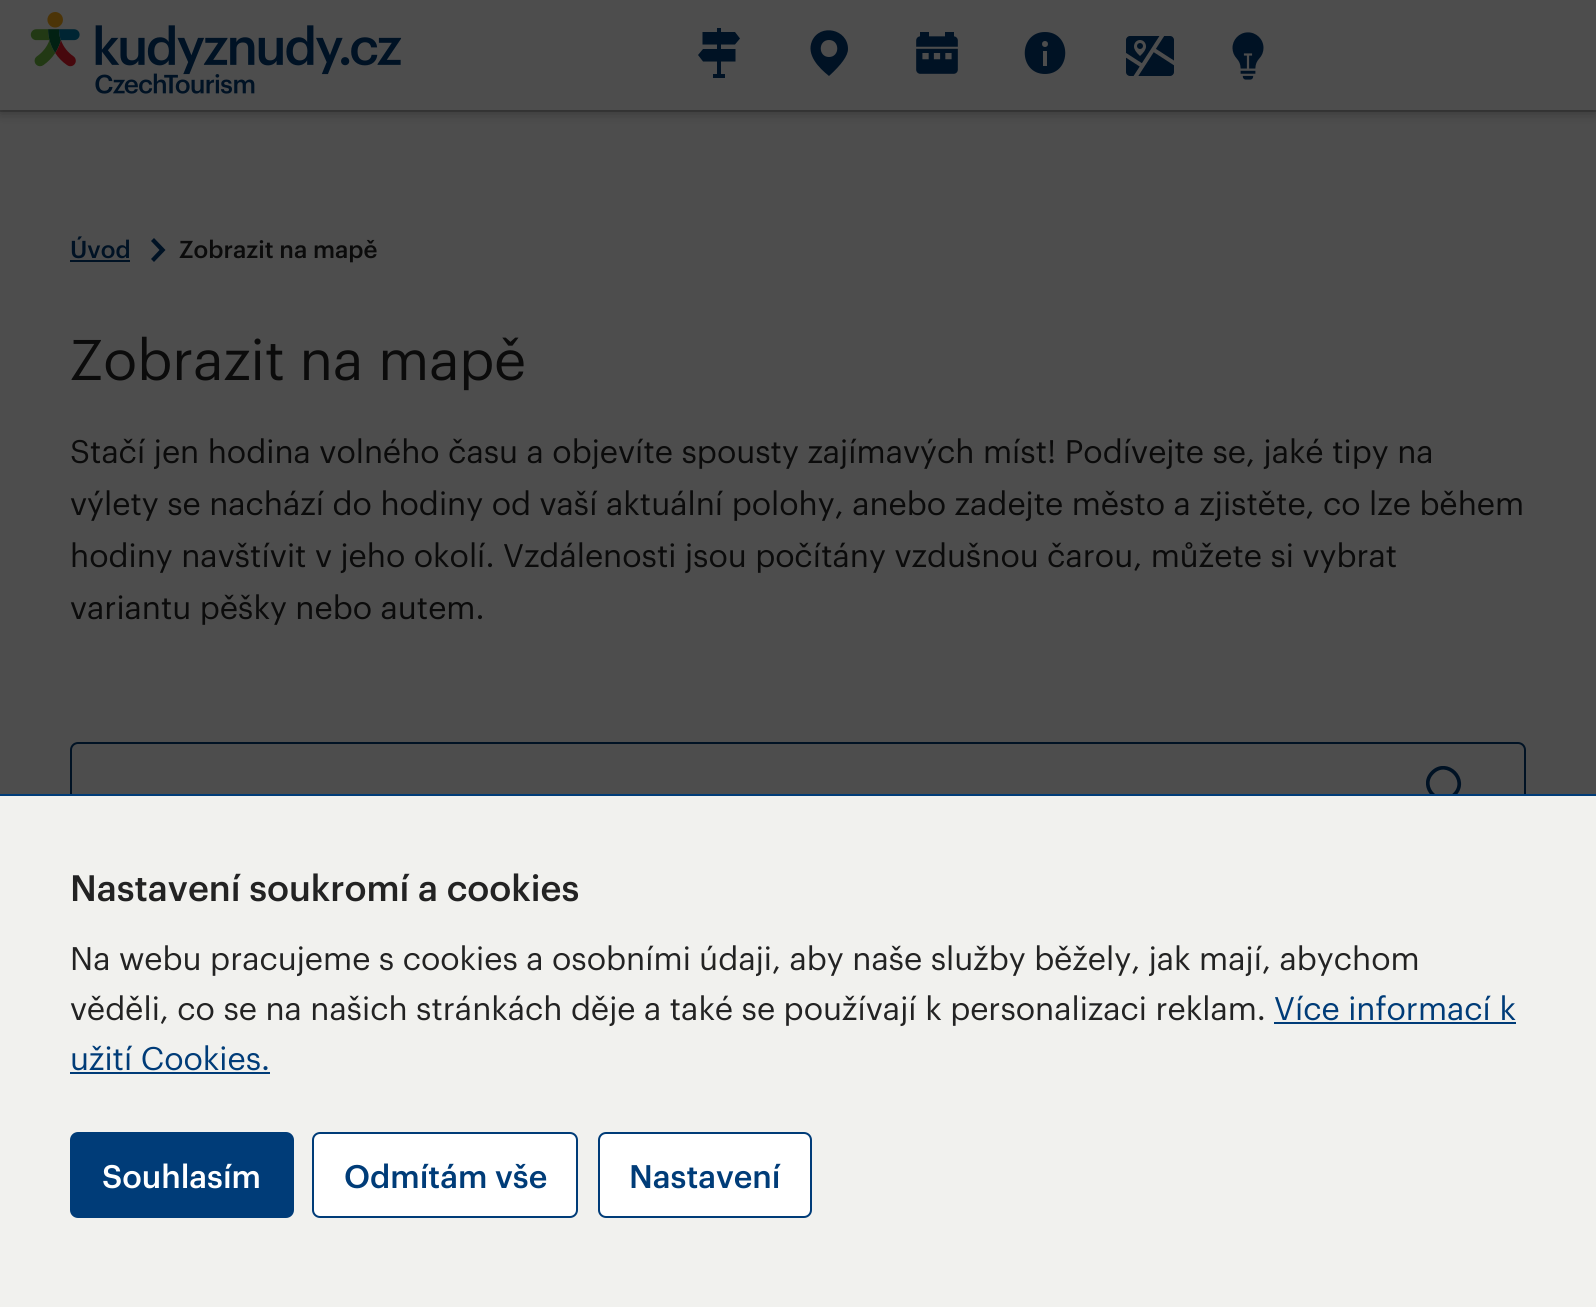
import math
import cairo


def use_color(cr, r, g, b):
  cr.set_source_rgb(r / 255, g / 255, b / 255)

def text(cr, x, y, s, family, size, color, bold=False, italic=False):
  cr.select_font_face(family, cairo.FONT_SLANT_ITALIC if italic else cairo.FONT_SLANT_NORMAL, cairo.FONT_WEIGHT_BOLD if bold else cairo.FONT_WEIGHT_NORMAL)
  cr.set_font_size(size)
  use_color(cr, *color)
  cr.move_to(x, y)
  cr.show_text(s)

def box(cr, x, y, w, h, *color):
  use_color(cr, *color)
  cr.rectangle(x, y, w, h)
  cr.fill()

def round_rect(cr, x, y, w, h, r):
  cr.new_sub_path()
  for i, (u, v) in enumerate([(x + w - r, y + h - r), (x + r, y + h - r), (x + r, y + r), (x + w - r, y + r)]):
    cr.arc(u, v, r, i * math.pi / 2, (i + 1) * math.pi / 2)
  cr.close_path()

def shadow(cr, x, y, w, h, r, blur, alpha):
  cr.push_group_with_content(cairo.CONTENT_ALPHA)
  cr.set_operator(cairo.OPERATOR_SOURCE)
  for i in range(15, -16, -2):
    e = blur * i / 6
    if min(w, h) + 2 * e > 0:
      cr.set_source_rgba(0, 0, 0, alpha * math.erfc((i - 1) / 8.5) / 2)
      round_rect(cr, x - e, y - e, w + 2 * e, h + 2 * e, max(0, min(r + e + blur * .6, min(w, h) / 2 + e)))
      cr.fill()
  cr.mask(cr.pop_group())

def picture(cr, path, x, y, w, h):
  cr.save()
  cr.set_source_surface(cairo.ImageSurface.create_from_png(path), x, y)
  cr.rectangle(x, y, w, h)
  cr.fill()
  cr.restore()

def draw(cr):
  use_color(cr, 77, 77, 77)
  cr.paint()
  box(cr, 0, 110, 1596, 2, 62, 62, 62)
  use_color(cr, 15, 15, 15)
  shadow(cr, 0, 4, 1596, 110, 0, 5, 0.3)
  box(cr, 0, 0, 1596, 110, 77, 77, 77)
  picture(cr, "img_01.png", 30, 12, 372, 82)
  box(cr, 717, 28, 4, 50, 0, 18, 36)
  cr.new_path()
  cr.move_to(702.5, 32)
  cr.line_to(735, 32)
  cr.line_to(740, 38.5)
  cr.line_to(735, 44.5)
  cr.line_to(702.5, 44.5)
  cr.close_path()
  cr.move_to(735.5, 49)
  cr.line_to(703, 49)
  cr.line_to(698, 55)
  cr.line_to(703, 61.5)
  cr.line_to(735.5, 61.5)
  cr.close_path()
  cr.fill()
  box(cr, 713, 74, 12, 4, 0, 18, 36)
  cr.set_fill_rule(cairo.FILL_RULE_EVEN_ODD)
  cr.new_path()
  cr.move_to(848, 49)
  cr.curve_to(848, 29, 820, 23, 812, 41)
  cr.curve_to(806, 55, 819, 68, 829, 76)
  cr.curve_to(841, 65, 848, 56, 848, 49)
  cr.close_path()
  cr.move_to(829, 57)
  cr.curve_to(840, 57, 840, 40, 829, 40)
  cr.curve_to(818, 40, 818, 57, 829, 57)
  cr.close_path()
  cr.fill()
  picture(cr, "img_02.png", 916, 32, 42, 42)
  cr.new_path()
  cr.move_to(1045, 74)
  cr.curve_to(1072, 74, 1072, 32, 1045, 32)
  cr.curve_to(1018, 32, 1018, 74, 1045, 74)
  cr.close_path()
  cr.move_to(1048, 44)
  cr.curve_to(1048, 48, 1042, 48, 1042, 44)
  cr.curve_to(1042, 40, 1048, 40, 1048, 44)
  cr.close_path()
  cr.move_to(1047, 51)
  cr.line_to(1047, 66)
  cr.line_to(1043, 66)
  cr.line_to(1043, 51)
  cr.close_path()
  cr.fill()
  picture(cr, "img_03.png", 1126, 36, 48, 40)
  picture(cr, "img_04.png", 1232, 32, 32, 48)
  box(cr, 70, 260, 60, 2, 0, 18, 36)
  cr.new_path()
  cr.move_to(165.5, 250)
  cr.line_to(154, 238)
  cr.line_to(151, 241)
  cr.line_to(159.5, 250)
  cr.line_to(151, 259)
  cr.line_to(154, 262)
  cr.close_path()
  cr.fill()
  cr.save()
  cr.set_fill_rule(cairo.FILL_RULE_WINDING)
  cr.rectangle(1426, 766, 50, 50)
  cr.clip()
  cr.new_path()
  cr.move_to(1454.5, 794.5)
  cr.curve_to(1469, 780, 1447, 758, 1432.5, 772.5)
  cr.curve_to(1418, 787, 1440, 809, 1454.5, 794.5)
  cr.line_to(1471.5, 812)
  cr.move_to(1462.5, 800)
  cr.line_to(1473.5, 811)
  cr.line_to(1471, 814)
  cr.line_to(1460, 802.5)
  cr.set_line_width(3.7)
  cr.set_line_cap(cairo.LINE_CAP_ROUND)
  cr.stroke()
  cr.restore()
  round_rect(cr, 71, 743, 1454, 94, 7)
  cr.stroke()
  box(cr, 0, 796, 1596, 511, 241, 241, 238)
  box(cr, 0, 794, 1596, 2, 0, 60, 120)
  box(cr, 1274, 1022, 242, 2, 0, 60, 120)
  box(cr, 70, 1072, 200, 2, 0, 60, 120)
  round_rect(cr, 71, 1133, 222, 84, 7)
  cr.fill_preserve()
  cr.stroke()
  use_color(cr, 255, 255, 255)
  round_rect(cr, 313, 1133, 264, 84, 7)
  cr.fill_preserve()
  use_color(cr, 0, 60, 120)
  cr.stroke()
  use_color(cr, 255, 255, 255)
  round_rect(cr, 599, 1133, 212, 84, 7)
  cr.fill_preserve()
  use_color(cr, 0, 60, 120)
  cr.stroke()
  text(cr, 70, 258, "Úvod", "Graphik Medium", 24, (0, 18, 36))
  text(cr, 179, 258, "Zobrazit na mapě", "Graphik Medium", 24, (11, 11, 11))
  text(cr, 70, 380, "Zobrazit na mapě", "Graphik", 56, (11, 11, 11))
  text(cr, 70, 463, "Stačí jen hodina volného času a objevíte spousty zajímavých míst! Podívejte se, jaké tipy na", "Graphik", 32, (11, 11, 11))
  text(cr, 70, 515, "výlety se nachází do hodiny od vaší aktuální polohy, anebo zadejte město a zjistěte, co lze během", "Graphik", 32, (11, 11, 11))
  text(cr, 70, 567, "hodiny navštívit v jeho okolí. Vzdálenosti jsou počítány vzdušnou čarou, můžete si vybrat", "Graphik", 32, (11, 11, 11))
  text(cr, 70, 619, "variantu pěšky nebo autem.", "Graphik", 32, (11, 11, 11))
  text(cr, 70, 901, "Nastavení soukromí a cookies", "Graphik Medium", 36, (35, 35, 35))
  text(cr, 70, 970, "Na webu pracujeme s cookies a osobními údaji, aby naše služby běžely, jak mají, abychom", "Graphik", 32, (35, 35, 35))
  text(cr, 70, 1020, "věděli, co se na našich stránkách děje a také se používají k personalizaci reklam.", "Graphik", 32, (35, 35, 35))
  text(cr, 1274, 1020, "Více informací k", "Graphik", 32, (0, 60, 120))
  text(cr, 70, 1070, "užití Cookies.", "Graphik", 32, (0, 60, 120))
  text(cr, 102, 1188, "Souhlasím", "Graphik Medium", 32, (255, 255, 255))
  text(cr, 344, 1188, "Odmítám vše", "Graphik Medium", 32, (0, 60, 120))
  text(cr, 629, 1188, "Nastavení", "Graphik Medium", 32, (0, 60, 120))


surface = cairo.ImageSurface(cairo.FORMAT_RGB24, 1596, 1307)
cr = cairo.Context(surface)
options = cairo.FontOptions()
options.set_hint_metrics(cairo.HINT_METRICS_OFF)
options.set_hint_style(cairo.HINT_STYLE_NONE)
cr.set_font_options(options)
cr.set_miter_limit(4)
draw(cr)
surface.write_to_png("out.png")
